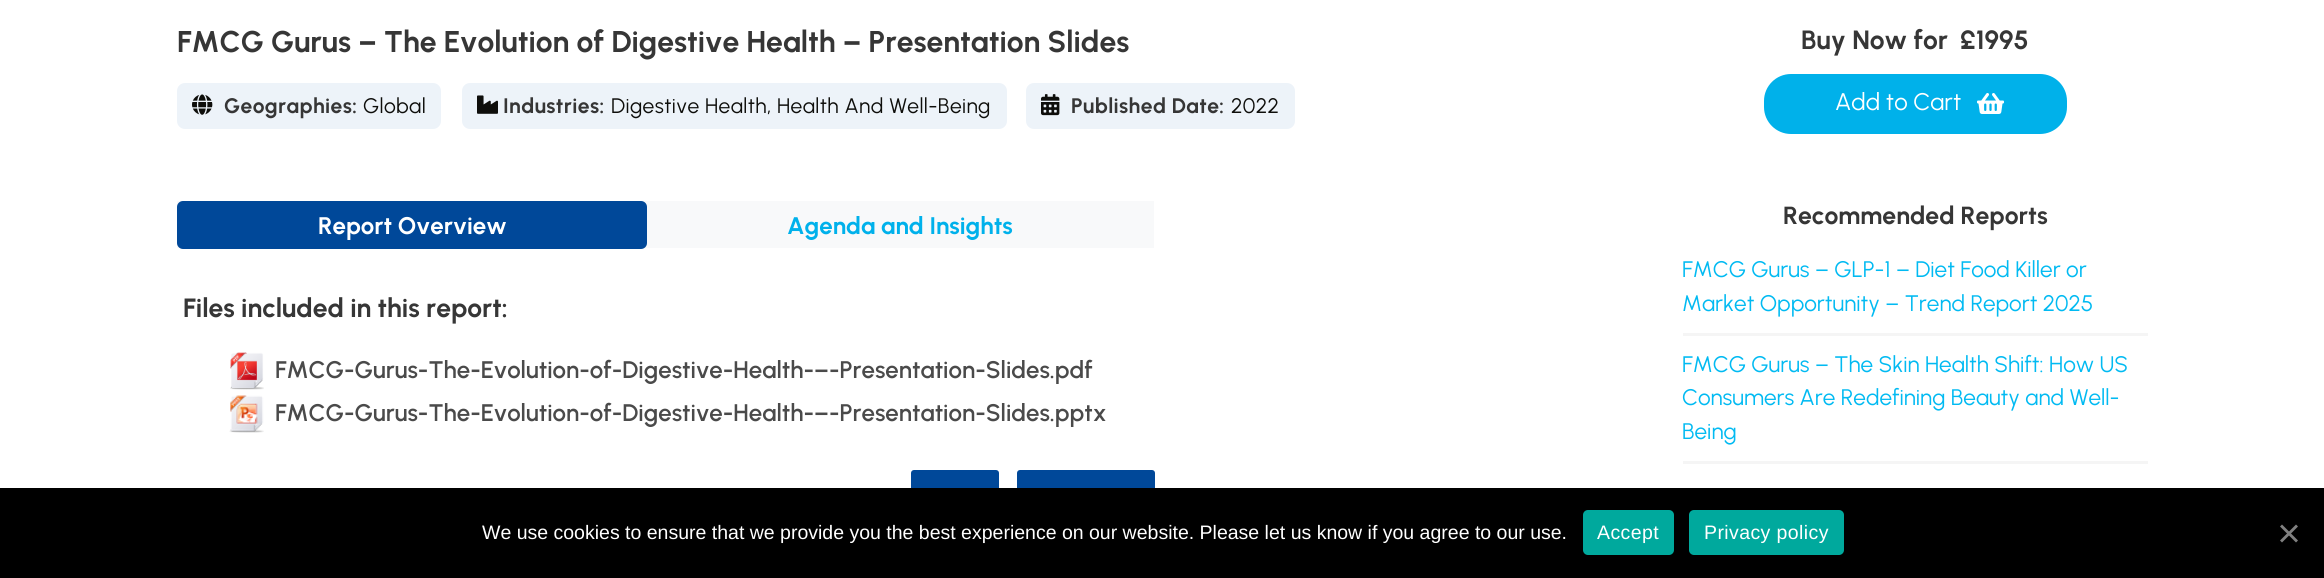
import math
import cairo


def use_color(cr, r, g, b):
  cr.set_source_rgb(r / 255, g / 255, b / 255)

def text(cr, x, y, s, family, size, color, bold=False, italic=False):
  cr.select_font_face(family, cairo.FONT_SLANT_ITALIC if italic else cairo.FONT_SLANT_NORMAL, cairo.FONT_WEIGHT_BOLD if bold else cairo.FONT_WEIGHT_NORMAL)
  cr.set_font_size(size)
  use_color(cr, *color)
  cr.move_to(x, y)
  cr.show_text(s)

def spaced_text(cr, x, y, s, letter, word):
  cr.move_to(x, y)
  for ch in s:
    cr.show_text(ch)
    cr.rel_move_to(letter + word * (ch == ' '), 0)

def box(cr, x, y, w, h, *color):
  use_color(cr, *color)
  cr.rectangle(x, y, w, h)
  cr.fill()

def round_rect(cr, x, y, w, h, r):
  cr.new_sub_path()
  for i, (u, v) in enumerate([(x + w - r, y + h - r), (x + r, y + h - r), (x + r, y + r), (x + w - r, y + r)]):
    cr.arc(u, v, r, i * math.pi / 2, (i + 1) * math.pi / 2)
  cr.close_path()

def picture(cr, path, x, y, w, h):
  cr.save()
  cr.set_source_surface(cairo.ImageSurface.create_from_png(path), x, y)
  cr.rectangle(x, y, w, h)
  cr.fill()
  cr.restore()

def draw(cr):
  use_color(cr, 255, 255, 255)
  cr.paint()
  use_color(cr, 237, 243, 249)
  round_rect(cr, 177, 83, 264, 46, 8)
  cr.fill()
  picture(cr, "img_01.png", 192, 94, 21, 21)
  round_rect(cr, 462, 83, 545, 46, 8)
  cr.fill()
  picture(cr, "img_02.png", 477, 95, 21, 19)
  round_rect(cr, 1026, 83, 269, 46, 8)
  cr.fill()
  picture(cr, "img_03.png", 1041, 94, 19, 22)
  use_color(cr, 0, 177, 234)
  round_rect(cr, 1765, 75, 301, 58, 26)
  cr.fill_preserve()
  cr.stroke()
  picture(cr, "img_04.png", 1977, 93, 27, 21)
  box(cr, 177, 201, 977, 47, 248, 249, 250)
  use_color(cr, 0, 72, 153)
  round_rect(cr, 177, 201, 470, 48, 6)
  cr.fill()
  picture(cr, "img_05.png", 230, 352, 34, 38)
  picture(cr, "img_06.png", 229, 395, 35, 38)
  round_rect(cr, 911, 470, 88, 45, 3)
  cr.fill()
  round_rect(cr, 1017, 470, 138, 45, 3)
  cr.fill()
  box(cr, 1683, 333, 465, 3, 245, 245, 245)
  box(cr, 1683, 461, 465, 3, 245, 245, 245)
  box(cr, 0, 488, 2324, 90, 0, 0, 0)
  use_color(cr, 0, 169, 157)
  round_rect(cr, 1583, 510, 91, 45, 5)
  cr.fill()
  round_rect(cr, 1689, 510, 155, 45, 5)
  cr.fill()
  use_color(cr, 128, 128, 128)
  cr.new_path()
  cr.move_to(2296, 524.5)
  cr.line_to(2298, 526.5)
  cr.line_to(2282, 542.5)
  cr.line_to(2280, 540.5)
  cr.close_path()
  cr.fill()
  cr.new_path()
  cr.move_to(2280, 526.5)
  cr.line_to(2282, 524.5)
  cr.line_to(2298, 540.5)
  cr.line_to(2296, 542.5)
  cr.close_path()
  cr.fill()
  text(cr, 177, 52, "FMCG Gurus – The Evolution of Digestive Health – Presentation Slides", "Urbanist", 30, (54, 54, 54), bold=True)
  cr.set_font_size(21)
  spaced_text(cr, 224, 113, "Geographies:", 0.4, 0)
  cr.select_font_face("Urbanist")
  use_color(cr, 14, 14, 11)
  spaced_text(cr, 363, 113, "Global", 0.4, 0)
  cr.select_font_face("Urbanist", cairo.FONT_SLANT_NORMAL, cairo.FONT_WEIGHT_BOLD)
  use_color(cr, 54, 54, 54)
  spaced_text(cr, 503, 113, "Industries:", 0.4, 0)
  cr.select_font_face("Urbanist")
  use_color(cr, 14, 14, 11)
  spaced_text(cr, 611, 113, "Digestive Health, Health And Well-Being", 0.4, 0)
  cr.select_font_face("Urbanist", cairo.FONT_SLANT_NORMAL, cairo.FONT_WEIGHT_BOLD)
  use_color(cr, 54, 54, 54)
  spaced_text(cr, 1071, 113, "Published Date:", 0.4, 0)
  cr.select_font_face("Urbanist")
  use_color(cr, 14, 14, 11)
  spaced_text(cr, 1231, 113, "2022", 0.4, 0)
  text(cr, 1801, 49, "Buy Now for", "Urbanist", 26.4, (54, 54, 54), bold=True)
  text(cr, 1960, 49, "£1995", "Urbanist", 26.4, (54, 54, 54), bold=True)
  text(cr, 1835, 110, "Add to Cart", "Urbanist", 24, (255, 255, 255))
  text(cr, 318, 234, "Report Overview", "Urbanist", 24, (255, 255, 255), bold=True)
  text(cr, 787, 234, "Agenda and Insights", "Urbanist", 24, (0, 177, 235), bold=True)
  text(cr, 183, 317, "Files included in this report:", "Urbanist", 26.4, (54, 54, 54), bold=True)
  text(cr, 275, 378, "FMCG-Gurus-The-Evolution-of-Digestive-Health-–-Presentation-Slides.pdf", "Urbanist SemiBold", 24, (74, 74, 74))
  text(cr, 275, 421, "FMCG-Gurus-The-Evolution-of-Digestive-Health-–-Presentation-Slides.pptx", "Urbanist SemiBold", 24, (74, 74, 74))
  text(cr, 1783, 224, "Recommended Reports", "Urbanist", 24.75, (54, 54, 54), bold=True)
  text(cr, 1682, 277, "FMCG Gurus – GLP-1 – Diet Food Killer or", "Urbanist", 22.5, (1, 186, 242))
  text(cr, 1682, 311, "Market Opportunity – Trend Report 2025", "Urbanist", 22.5, (1, 186, 242))
  text(cr, 1682, 372, "FMCG Gurus – The Skin Health Shift: How US", "Urbanist", 22.5, (1, 186, 242))
  text(cr, 1682, 405, "Consumers Are Redefining Beauty and Well-", "Urbanist", 22.5, (1, 186, 242))
  text(cr, 1682, 439, "Being", "Urbanist", 22.5, (1, 186, 242))
  text(cr, 482, 539, "We use cookies to ensure that we provide you the best experience on our website. Please let us know if you agree to our use.", "Liberation Sans", 19.5, (255, 255, 255))
  spaced_text(cr, 1597, 539, "Accept", 0.4, 0)
  spaced_text(cr, 1704, 539, "Privacy policy", 0.4, 0)


surface = cairo.ImageSurface(cairo.FORMAT_RGB24, 2324, 578)
cr = cairo.Context(surface)
options = cairo.FontOptions()
options.set_hint_metrics(cairo.HINT_METRICS_OFF)
options.set_hint_style(cairo.HINT_STYLE_NONE)
cr.set_font_options(options)
cr.set_miter_limit(4)
draw(cr)
surface.write_to_png("out.png")
